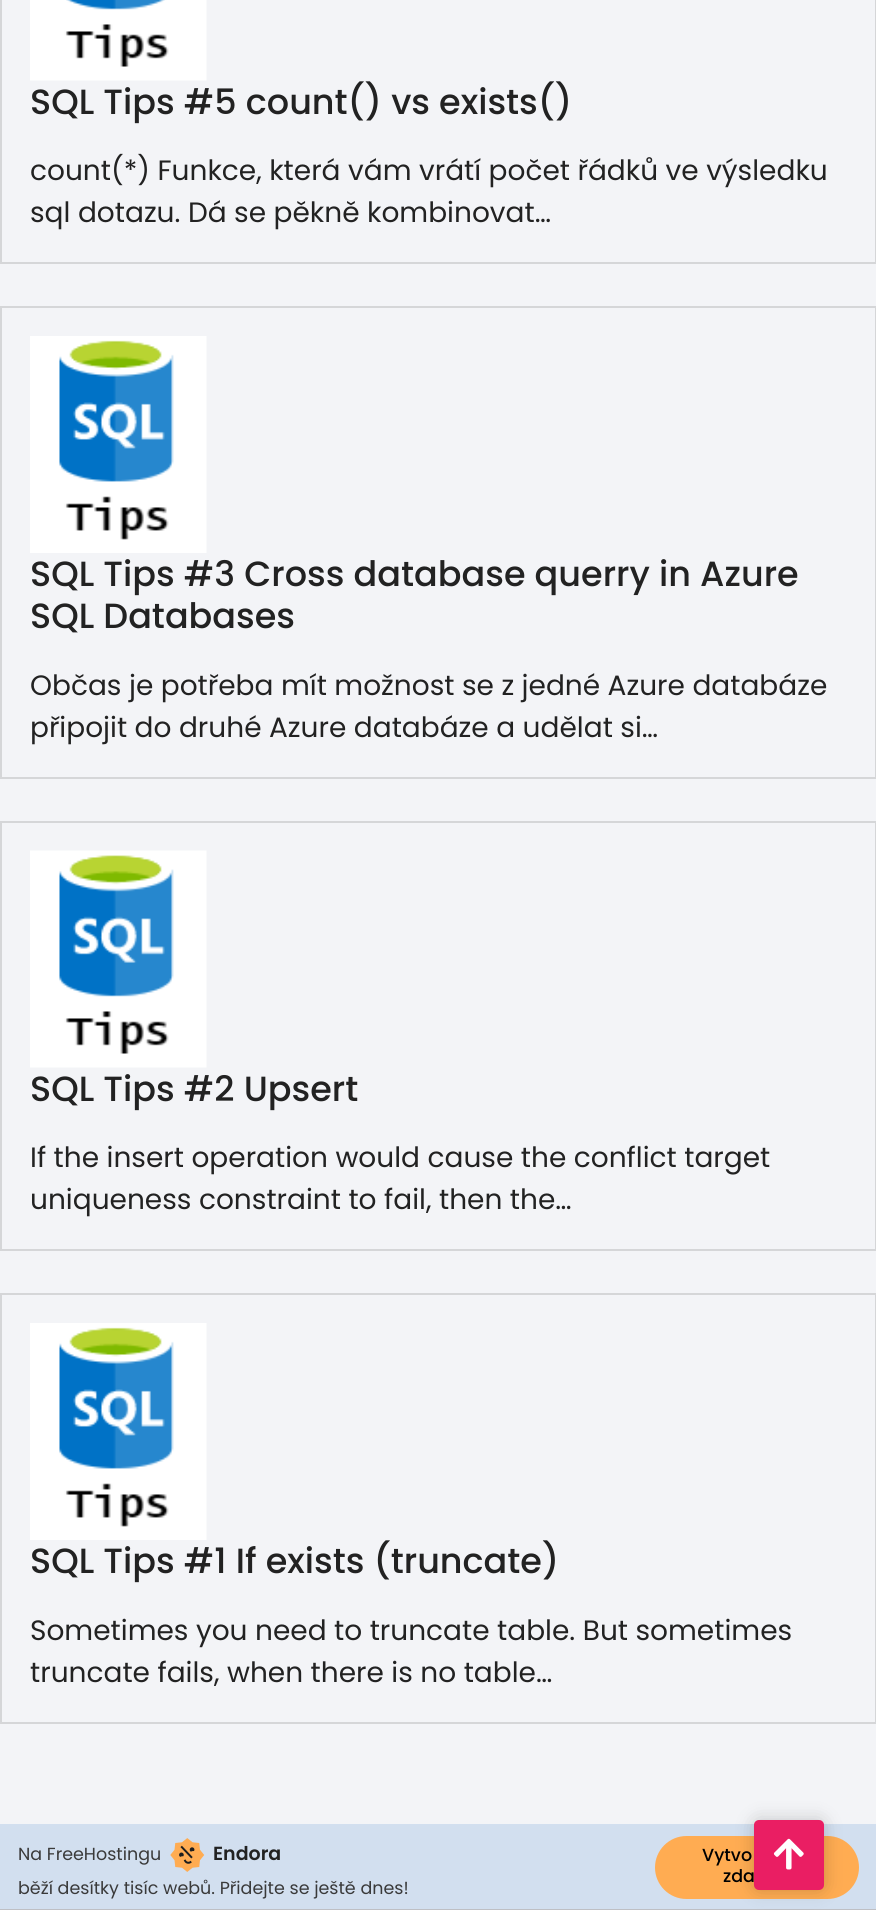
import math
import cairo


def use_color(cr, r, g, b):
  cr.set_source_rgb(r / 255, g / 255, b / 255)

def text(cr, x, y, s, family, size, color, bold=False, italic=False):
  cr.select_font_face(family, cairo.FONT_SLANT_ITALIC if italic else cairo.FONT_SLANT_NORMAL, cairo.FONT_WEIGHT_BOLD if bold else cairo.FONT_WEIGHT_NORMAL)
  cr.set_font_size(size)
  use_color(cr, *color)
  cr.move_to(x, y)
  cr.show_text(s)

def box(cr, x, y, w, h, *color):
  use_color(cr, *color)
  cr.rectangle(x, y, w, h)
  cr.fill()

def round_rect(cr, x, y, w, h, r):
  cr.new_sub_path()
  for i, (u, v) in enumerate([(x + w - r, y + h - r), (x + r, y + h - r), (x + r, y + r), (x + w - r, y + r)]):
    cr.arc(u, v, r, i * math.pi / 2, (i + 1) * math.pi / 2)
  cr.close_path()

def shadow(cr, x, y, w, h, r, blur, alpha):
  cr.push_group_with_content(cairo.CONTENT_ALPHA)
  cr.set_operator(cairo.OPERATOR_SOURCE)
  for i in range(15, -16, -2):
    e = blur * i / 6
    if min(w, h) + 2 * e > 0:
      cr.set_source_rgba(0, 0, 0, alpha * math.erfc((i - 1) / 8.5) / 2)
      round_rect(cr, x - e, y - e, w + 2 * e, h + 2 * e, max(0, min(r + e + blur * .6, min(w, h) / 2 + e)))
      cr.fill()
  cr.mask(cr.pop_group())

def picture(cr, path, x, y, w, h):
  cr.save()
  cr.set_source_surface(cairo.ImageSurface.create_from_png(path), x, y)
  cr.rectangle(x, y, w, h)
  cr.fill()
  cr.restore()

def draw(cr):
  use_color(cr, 243, 244, 247)
  cr.paint()
  cr.rectangle(1, -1, 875, 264)
  use_color(cr, 213, 214, 216)
  cr.stroke()
  picture(cr, "img_01.png", 30, 0, 177, 81)
  cr.rectangle(1, 307, 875, 471)
  cr.stroke()
  picture(cr, "img_02.png", 30, 336, 177, 217)
  cr.rectangle(1, 822, 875, 428)
  cr.stroke()
  picture(cr, "img_03.png", 30, 850, 177, 218)
  cr.rectangle(1, 1294, 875, 429)
  cr.stroke()
  picture(cr, "img_02.png", 30, 1323, 177, 217)
  box(cr, 0, 1824, 876, 85, 210, 223, 239)
  box(cr, 0, 1909, 876, 1, 190, 191, 196)
  picture(cr, "img_04.png", 170, 1838, 35, 34)
  use_color(cr, 255, 172, 82)
  round_rect(cr, 655, 1836, 204, 63, 31.5)
  cr.fill()
  use_color(cr, 0, 0, 0)
  shadow(cr, 754, 1820, 70, 70, 5, 9, 0.2)
  use_color(cr, 234, 30, 99)
  round_rect(cr, 754, 1820, 70, 70, 5)
  cr.fill()
  picture(cr, "img_05.png", 773, 1838, 31, 32)
  text(cr, 30, 114, "SQL Tips #5 count() vs exists()", "Poppins Medium", 35, (34, 34, 34))
  text(cr, 30, 180, "count(*) Funkce, která vám vrátí počet řádků ve výsledku", "Poppins", 28, (34, 34, 34))
  text(cr, 30, 222, "sql dotazu. Dá se pěkně kombinovat…", "Poppins", 28, (34, 34, 34))
  text(cr, 30, 586, "SQL Tips #3 Cross database querry in Azure", "Poppins Medium", 35, (34, 34, 34))
  text(cr, 30, 628, "SQL Databases", "Poppins Medium", 35, (34, 34, 34))
  text(cr, 30, 695, "Občas je potřeba mít možnost se z jedné Azure databáze", "Poppins", 28, (34, 34, 34))
  text(cr, 30, 737, "připojit do druhé Azure databáze a udělat si…", "Poppins", 28, (34, 34, 34))
  text(cr, 30, 1101, "SQL Tips #2 Upsert", "Poppins Medium", 35, (34, 34, 34))
  text(cr, 30, 1167, "If the insert operation would cause the conflict target", "Poppins", 28, (34, 34, 34))
  text(cr, 30, 1209, "uniqueness constraint to fail, then the…", "Poppins", 28, (34, 34, 34))
  text(cr, 30, 1573, "SQL Tips #1 If exists (truncate)", "Poppins Medium", 35, (34, 34, 34))
  text(cr, 30, 1640, "Sometimes you need to truncate table. But sometimes", "Poppins", 28, (34, 34, 34))
  text(cr, 30, 1682, "truncate fails, when there is no table…", "Poppins", 28, (34, 34, 34))
  text(cr, 18, 1860, "Na FreeHostingu", "Poppins", 17.5, (58, 58, 58))
  text(cr, 213, 1860, "Endora", "Poppins SemiBold", 19, (34, 34, 34))
  text(cr, 18, 1894, "běží desítky tisíc webů. Přidejte se ještě dnes!", "Poppins", 17.5, (58, 58, 58))
  text(cr, 702, 1861, "Vytvo", "Poppins Medium", 17.5, (0, 0, 0))
  text(cr, 723, 1882, "zda", "Poppins Medium", 17.5, (0, 0, 0))


surface = cairo.ImageSurface(cairo.FORMAT_RGB24, 876, 1910)
cr = cairo.Context(surface)
options = cairo.FontOptions()
options.set_hint_metrics(cairo.HINT_METRICS_OFF)
options.set_hint_style(cairo.HINT_STYLE_NONE)
cr.set_font_options(options)
cr.set_miter_limit(4)
draw(cr)
surface.write_to_png("out.png")
